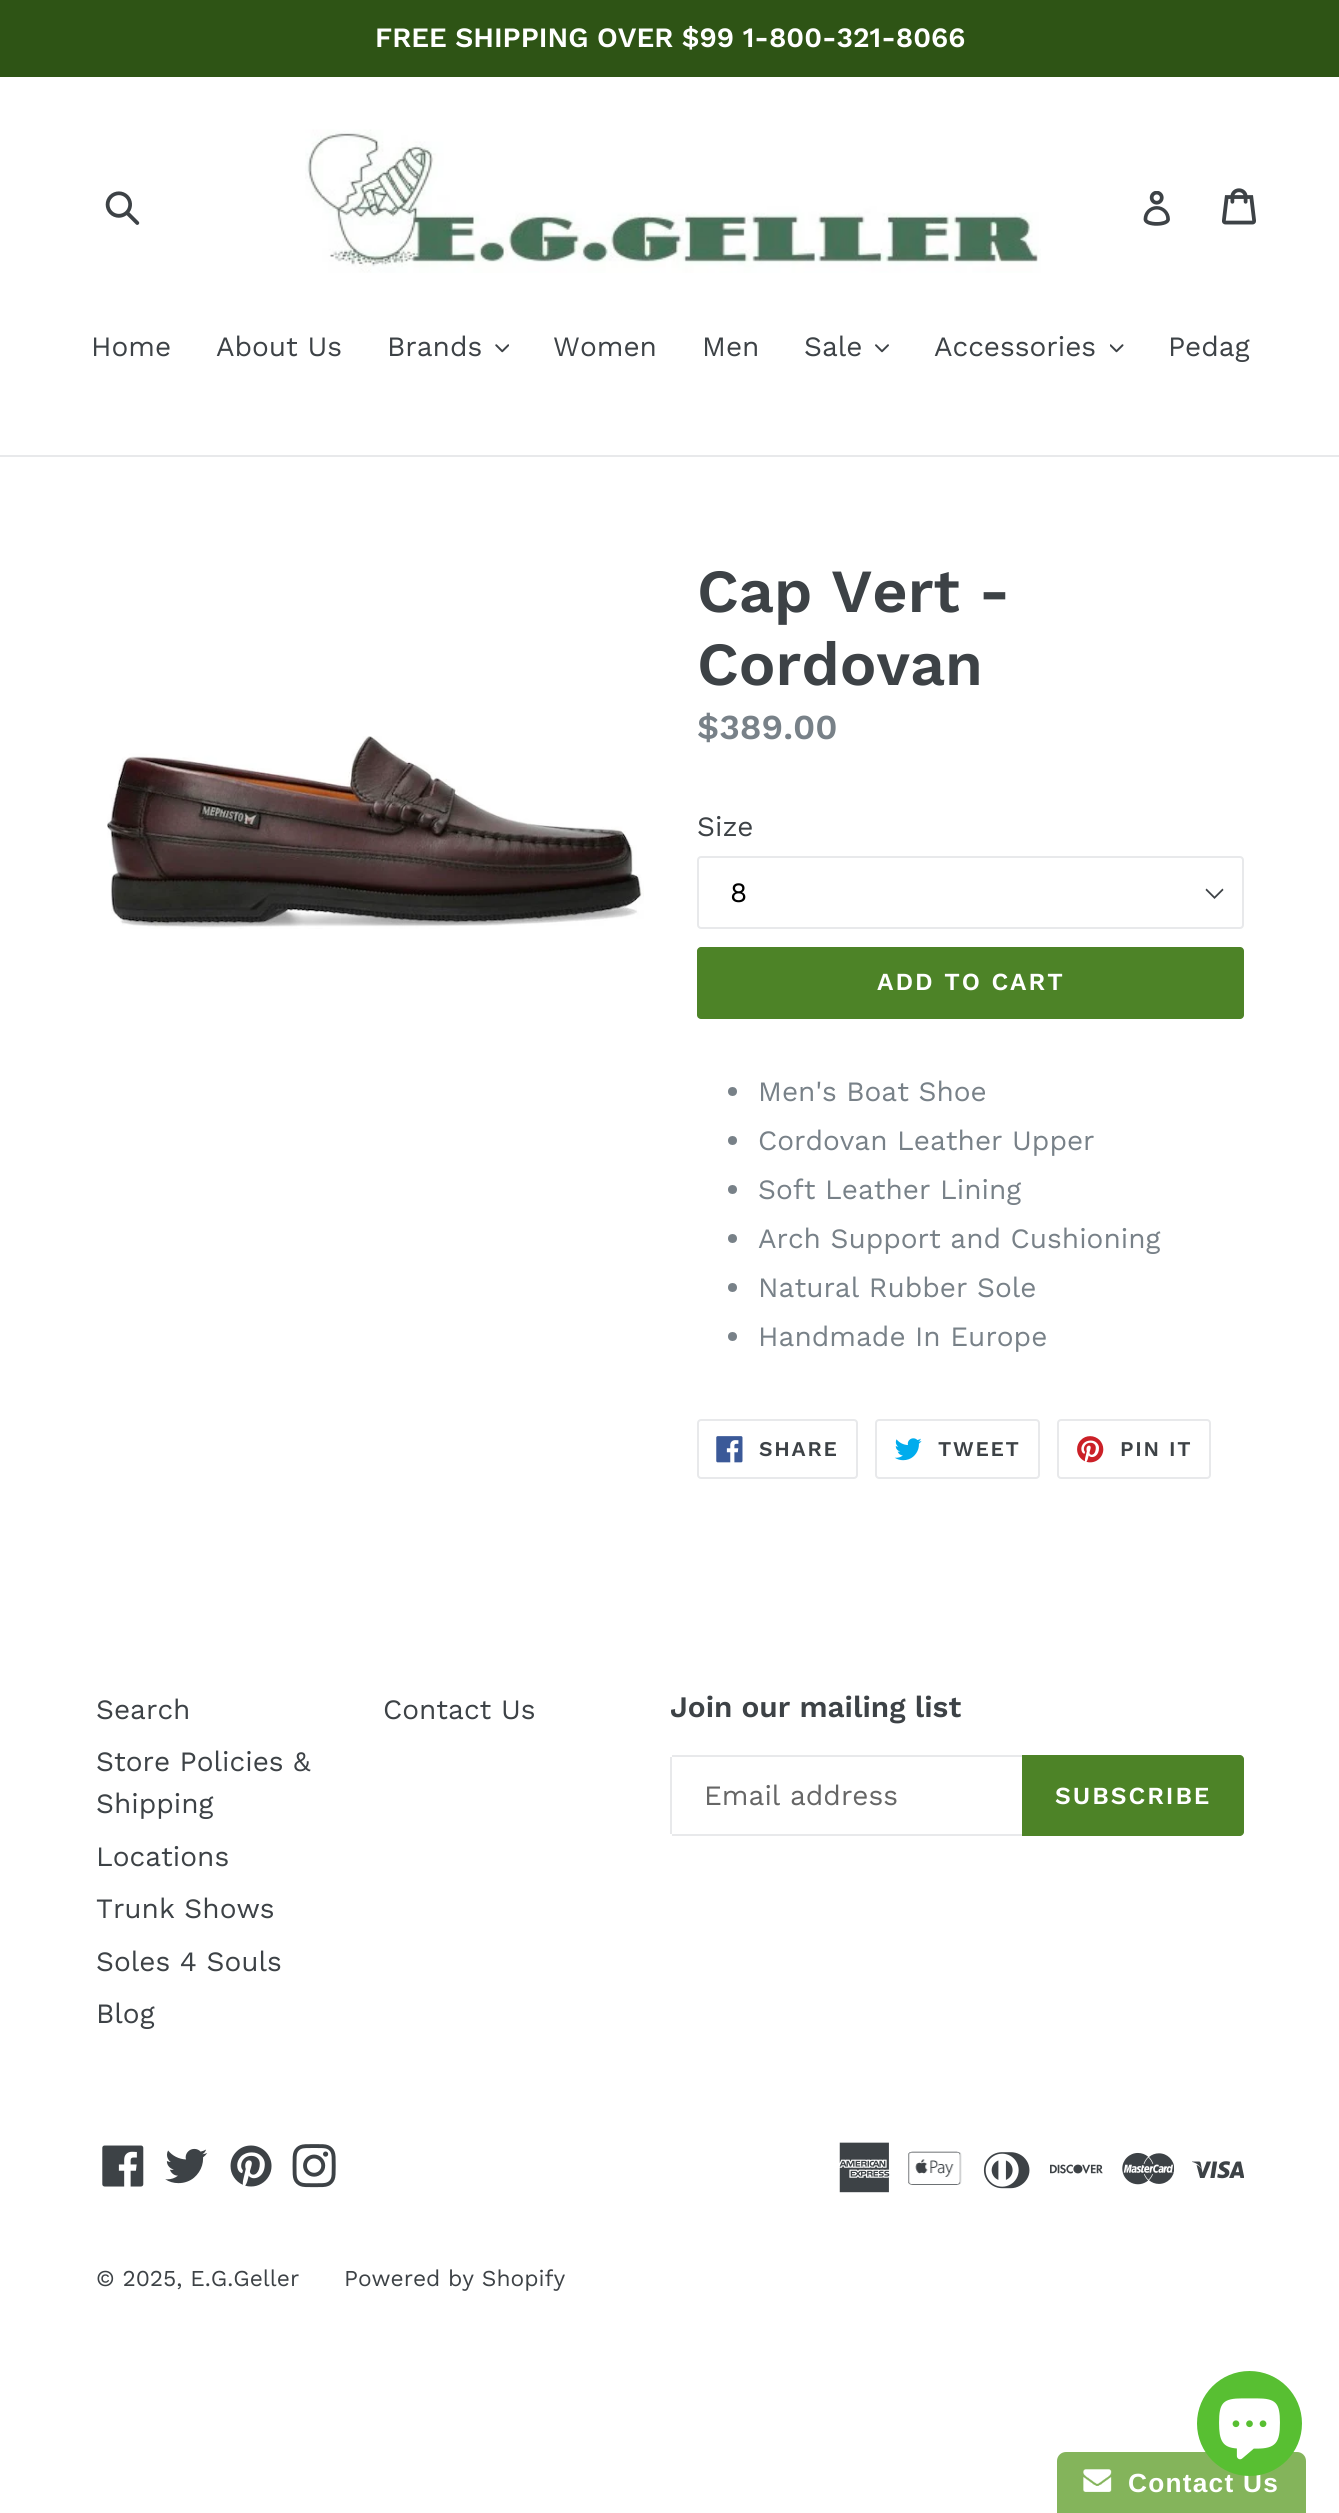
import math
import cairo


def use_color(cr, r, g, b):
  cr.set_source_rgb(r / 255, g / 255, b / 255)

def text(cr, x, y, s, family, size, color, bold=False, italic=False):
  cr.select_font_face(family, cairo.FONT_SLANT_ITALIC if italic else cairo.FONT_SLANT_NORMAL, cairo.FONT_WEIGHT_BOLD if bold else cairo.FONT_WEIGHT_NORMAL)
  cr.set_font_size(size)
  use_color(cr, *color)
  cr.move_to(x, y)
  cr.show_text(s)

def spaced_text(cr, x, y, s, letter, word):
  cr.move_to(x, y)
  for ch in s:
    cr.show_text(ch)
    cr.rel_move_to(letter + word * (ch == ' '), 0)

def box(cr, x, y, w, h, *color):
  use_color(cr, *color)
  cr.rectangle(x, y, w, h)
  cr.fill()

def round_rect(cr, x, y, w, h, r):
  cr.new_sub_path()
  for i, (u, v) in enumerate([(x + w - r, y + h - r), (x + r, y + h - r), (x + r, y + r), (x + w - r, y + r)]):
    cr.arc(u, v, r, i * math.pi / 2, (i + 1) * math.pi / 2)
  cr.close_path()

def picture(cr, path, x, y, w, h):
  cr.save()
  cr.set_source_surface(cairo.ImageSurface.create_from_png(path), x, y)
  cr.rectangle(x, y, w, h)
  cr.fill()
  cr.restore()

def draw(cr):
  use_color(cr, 255, 255, 255)
  cr.paint()
  box(cr, 0, 0, 1339, 77, 46, 84, 21)
  picture(cr, "img_01.png", 105, 191, 35, 34)
  picture(cr, "img_02.png", 305, 129, 736, 144)
  picture(cr, "img_03.png", 1143, 191, 27, 35)
  picture(cr, "img_04.png", 1222, 188, 34, 37)
  box(cr, 0, 455, 1339, 2, 232, 233, 235)
  picture(cr, "img_05.png", 495, 344, 14, 9)
  picture(cr, "img_06.png", 875, 344, 14, 9)
  picture(cr, "img_07.png", 1110, 344, 14, 9)
  picture(cr, "img_08.png", 107, 736, 537, 193)
  use_color(cr, 61, 66, 70)
  cr.new_path()
  cr.move_to(1214.5, 899)
  cr.line_to(1205.5, 890)
  cr.line_to(1206.5, 888.5)
  cr.line_to(1214.5, 896.5)
  cr.line_to(1222.5, 888.5)
  cr.line_to(1223.5, 890)
  cr.close_path()
  cr.fill()
  round_rect(cr, 698, 857, 545, 71, 3)
  use_color(cr, 232, 233, 235)
  cr.stroke()
  use_color(cr, 77, 131, 39)
  round_rect(cr, 697, 947, 547, 72, 4)
  cr.fill()
  use_color(cr, 120, 129, 136)
  cr.arc(732.5, 1091.5, 4.5, 0, 2 * math.pi)
  cr.fill()
  cr.arc(732.5, 1140.5, 4.5, 0, 2 * math.pi)
  cr.fill()
  cr.arc(732.5, 1189.5, 4.5, 0, 2 * math.pi)
  cr.fill()
  cr.arc(732.5, 1238.5, 4.5, 0, 2 * math.pi)
  cr.fill()
  cr.arc(732.5, 1287.5, 4.5, 0, 2 * math.pi)
  cr.fill()
  cr.arc(732.5, 1336.5, 4.5, 0, 2 * math.pi)
  cr.fill()
  round_rect(cr, 698, 1420, 159, 58, 3)
  use_color(cr, 232, 233, 235)
  cr.stroke()
  picture(cr, "img_09.png", 716, 1436, 27, 27)
  round_rect(cr, 876, 1420, 163, 58, 3)
  cr.stroke()
  picture(cr, "img_10.png", 894, 1438, 28, 23)
  round_rect(cr, 1058, 1420, 152, 58, 3)
  cr.stroke()
  picture(cr, "img_11.png", 1077, 1436, 27, 27)
  box(cr, 672, 1755, 350, 2, 232, 233, 235)
  box(cr, 672, 1834, 350, 2, 232, 233, 235)
  box(cr, 670, 1757, 2, 77, 232, 233, 235)
  use_color(cr, 77, 131, 39)
  cr.new_path()
  cr.move_to(1022, 1755)
  cr.line_to(1240, 1755)
  cr.curve_to(1242, 1755, 1244, 1757, 1244, 1759)
  cr.line_to(1244, 1832)
  cr.curve_to(1244, 1834, 1242, 1836, 1240, 1836)
  cr.line_to(1022, 1836)
  cr.close_path()
  cr.fill()
  picture(cr, "img_12.png", 102, 2145, 42, 42)
  picture(cr, "img_13.png", 165, 2148, 43, 36)
  picture(cr, "img_14.png", 230, 2145, 42, 42)
  picture(cr, "img_15.png", 292, 2144, 44, 44)
  picture(cr, "img_16.png", 839, 2142, 51, 51)
  picture(cr, "img_17.png", 908, 2151, 54, 34)
  picture(cr, "img_18.png", 983, 2152, 47, 37)
  picture(cr, "img_19.png", 1050, 2164, 53, 10)
  picture(cr, "img_20.png", 1122, 2152, 52, 33)
  picture(cr, "img_21.png", 1192, 2161, 52, 18)
  use_color(cr, 132, 180, 91)
  cr.new_path()
  cr.move_to(1066, 2452)
  cr.line_to(1297, 2452)
  cr.curve_to(1302, 2452, 1306, 2456, 1306, 2461)
  cr.line_to(1306, 2513)
  cr.line_to(1057, 2513)
  cr.line_to(1057, 2461)
  cr.curve_to(1057, 2456, 1061, 2452, 1066, 2452)
  cr.close_path()
  cr.fill()
  picture(cr, "img_23.png", 1083, 2469, 29, 23)
  text(cr, 375, 47, "FREE SHIPPING OVER $99 1-800-321-8066", "Work Sans SemiBold", 28, (255, 255, 255))
  text(cr, 91, 356, "Home", "Work Sans", 28, (61, 66, 70))
  text(cr, 216, 356, "About Us", "Work Sans", 28, (61, 66, 70))
  text(cr, 387, 356, "Brands", "Work Sans", 28, (61, 66, 70))
  text(cr, 553, 356, "Women", "Work Sans", 28, (61, 66, 70))
  text(cr, 702, 356, "Men", "Work Sans", 28, (61, 66, 70))
  text(cr, 804, 356, "Sale", "Work Sans", 28, (61, 66, 70))
  text(cr, 934, 356, "Accessories", "Work Sans", 28, (61, 66, 70))
  text(cr, 1168, 356, "Pedag", "Work Sans", 28, (61, 66, 70))
  text(cr, 697, 612, "Cap Vert -", "Work Sans SemiBold", 61.25, (61, 66, 70))
  text(cr, 697, 685, "Cordovan", "Work Sans SemiBold", 61.25, (61, 66, 70))
  text(cr, 697, 739, "$389.00", "Work Sans SemiBold", 35, (120, 129, 136))
  text(cr, 697, 836, "Size", "Work Sans", 28, (61, 66, 70))
  text(cr, 730, 902, "8", "Work Sans", 28, (0, 0, 0))
  cr.select_font_face("Work Sans SemiBold")
  cr.set_font_size(24.5)
  use_color(cr, 255, 255, 255)
  spaced_text(cr, 877, 990, "ADD TO CART", 2, 0)
  text(cr, 758, 1101, "Men's Boat Shoe", "Work Sans", 28, (120, 129, 136))
  text(cr, 758, 1150, "Cordovan Leather Upper", "Work Sans", 28, (120, 129, 136))
  text(cr, 758, 1199, "Soft Leather Lining", "Work Sans", 28, (120, 129, 136))
  text(cr, 758, 1248, "Arch Support and Cushioning", "Work Sans", 28, (120, 129, 136))
  text(cr, 758, 1297, "Natural Rubber Sole", "Work Sans", 28, (120, 129, 136))
  text(cr, 758, 1346, "Handmade In Europe", "Work Sans", 28, (120, 129, 136))
  cr.select_font_face("Work Sans SemiBold")
  cr.set_font_size(21)
  use_color(cr, 61, 66, 70)
  spaced_text(cr, 759, 1456, "SHARE", 1.75, 0)
  spaced_text(cr, 938, 1456, "TWEET", 1.75, 0)
  spaced_text(cr, 1120, 1456, "PIN IT", 1.75, 0)
  text(cr, 96, 1719, "Search", "Work Sans", 28, (61, 66, 70))
  text(cr, 96, 1771, "Store Policies &", "Work Sans", 28, (61, 66, 70))
  text(cr, 96, 1813, "Shipping", "Work Sans", 28, (61, 66, 70))
  text(cr, 96, 1866, "Locations", "Work Sans", 28, (61, 66, 70))
  text(cr, 96, 1918, "Trunk Shows", "Work Sans", 28, (61, 66, 70))
  text(cr, 96, 1971, "Soles 4 Souls", "Work Sans", 28, (61, 66, 70))
  text(cr, 96, 2023, "Blog", "Work Sans", 28, (61, 66, 70))
  text(cr, 383, 1719, "Contact Us", "Work Sans", 28, (61, 66, 70))
  text(cr, 670, 1717, "Join our mailing list", "Work Sans SemiBold", 29.75, (61, 66, 70))
  text(cr, 704, 1805, "Email address", "Work Sans", 28, (102, 102, 102))
  cr.select_font_face("Work Sans SemiBold")
  cr.set_font_size(24.5)
  use_color(cr, 255, 255, 255)
  spaced_text(cr, 1055, 1804, "SUBSCRIBE", 2, 0)
  text(cr, 96, 2286, "© 2025, E.G.Geller", "Work Sans", 22.75, (61, 66, 70))
  text(cr, 344, 2286, "Powered by Shopify", "Work Sans", 22.75, (61, 66, 70))
  cr.select_font_face("Liberation Sans", cairo.FONT_SLANT_NORMAL, cairo.FONT_WEIGHT_BOLD)
  cr.set_font_size(26.25)
  use_color(cr, 255, 255, 255)
  spaced_text(cr, 1128, 2492, "Contact Us", 1.25, 0)
  use_color(cr, 88, 191, 50)
  cr.new_path()
  cr.arc(1249.5, 2423.5, 52.5, 0, 2 * math.pi)
  cr.fill()
  picture(cr, "img_22.png", 1219, 2398, 61, 62)


surface = cairo.ImageSurface(cairo.FORMAT_RGB24, 1339, 2513)
cr = cairo.Context(surface)
options = cairo.FontOptions()
options.set_hint_metrics(cairo.HINT_METRICS_OFF)
options.set_hint_style(cairo.HINT_STYLE_NONE)
cr.set_font_options(options)
cr.set_miter_limit(4)
draw(cr)
surface.write_to_png("out.png")
